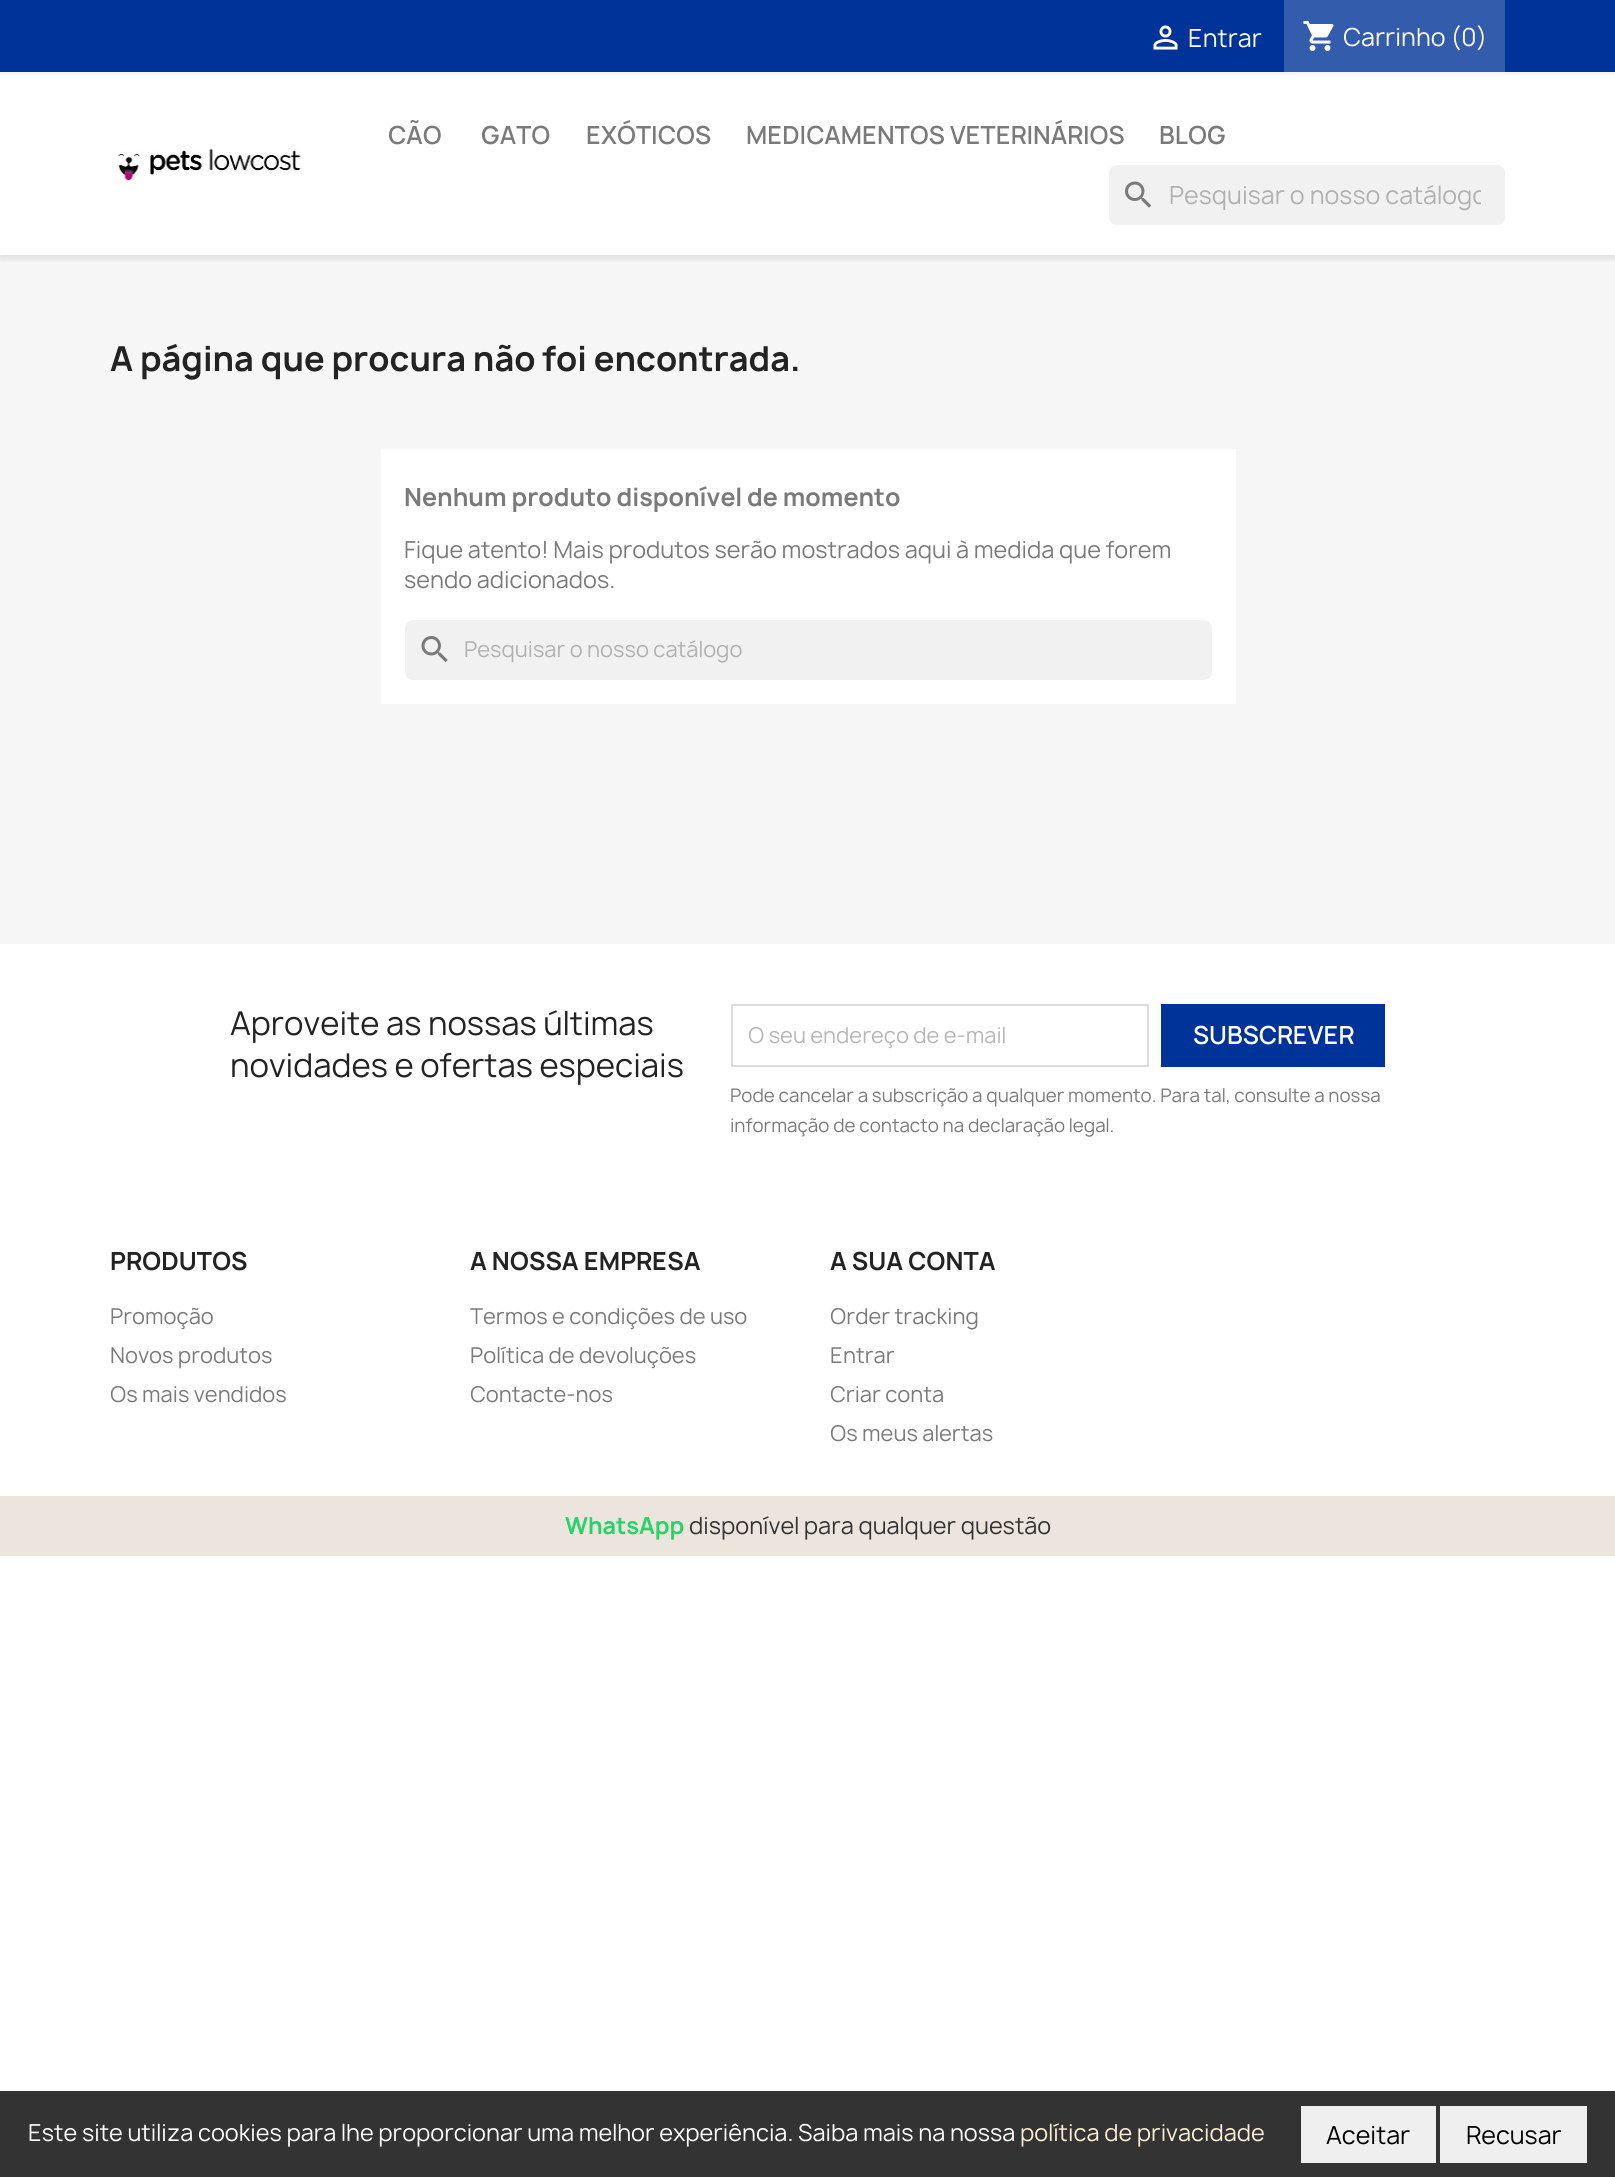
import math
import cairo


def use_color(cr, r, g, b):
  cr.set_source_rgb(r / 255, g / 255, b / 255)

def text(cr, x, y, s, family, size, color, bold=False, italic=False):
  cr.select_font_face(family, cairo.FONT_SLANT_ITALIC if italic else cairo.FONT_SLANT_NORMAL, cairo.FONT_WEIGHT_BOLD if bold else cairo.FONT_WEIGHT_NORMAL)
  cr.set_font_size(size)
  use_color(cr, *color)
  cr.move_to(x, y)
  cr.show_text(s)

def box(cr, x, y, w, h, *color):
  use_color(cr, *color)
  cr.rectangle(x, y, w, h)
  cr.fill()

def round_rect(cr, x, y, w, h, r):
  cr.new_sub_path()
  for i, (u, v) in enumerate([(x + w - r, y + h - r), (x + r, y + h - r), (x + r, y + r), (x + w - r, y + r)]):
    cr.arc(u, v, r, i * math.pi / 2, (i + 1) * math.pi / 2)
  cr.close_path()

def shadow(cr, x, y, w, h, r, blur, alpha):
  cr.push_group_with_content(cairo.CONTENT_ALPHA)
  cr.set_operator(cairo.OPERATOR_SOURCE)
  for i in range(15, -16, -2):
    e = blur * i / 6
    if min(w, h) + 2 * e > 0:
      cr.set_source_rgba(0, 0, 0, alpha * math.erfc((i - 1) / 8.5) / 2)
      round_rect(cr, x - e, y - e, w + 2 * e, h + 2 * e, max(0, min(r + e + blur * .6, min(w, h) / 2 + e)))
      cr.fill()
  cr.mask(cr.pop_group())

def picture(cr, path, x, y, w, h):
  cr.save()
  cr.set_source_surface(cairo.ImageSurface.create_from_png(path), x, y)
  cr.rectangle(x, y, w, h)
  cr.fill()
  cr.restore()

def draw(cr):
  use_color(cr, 255, 255, 255)
  cr.paint()
  box(cr, 0, 255, 1615, 689, 246, 246, 246)
  cr.save()
  cr.rectangle(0, 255, 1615, 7)
  cr.clip()
  use_color(cr, 0, 0, 0)
  shadow(cr, 0, 3, 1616, 255, 0, 4, 0.11)
  cr.restore()
  box(cr, 0, 0, 1615, 72, 0, 51, 153)
  box(cr, 0, 72, 1615, 3, 246, 246, 246)
  picture(cr, "img_01.png", 1153, 25, 25, 25)
  box(cr, 1284, 0, 221, 72, 51, 92, 173)
  picture(cr, "img_02.png", 1303, 21, 31, 30)
  picture(cr, "img_03.png", 117, 147, 185, 36)
  use_color(cr, 241, 241, 241)
  round_rect(cr, 1109, 165, 396, 60, 8)
  cr.fill()
  picture(cr, "img_04.png", 1125, 181, 27, 27)
  box(cr, 381, 449, 855, 255, 255, 255, 255)
  use_color(cr, 241, 241, 241)
  round_rect(cr, 405, 620, 807, 60, 8)
  cr.fill()
  picture(cr, "img_05.png", 421, 636, 27, 27)
  cr.rectangle(732, 1005, 416, 61)
  use_color(cr, 221, 221, 221)
  cr.stroke()
  box(cr, 1161, 1004, 224, 63, 0, 51, 153)
  box(cr, 0, 1496, 1615, 60, 236, 229, 221)
  box(cr, 0, 2091, 1615, 86, 51, 51, 51)
  box(cr, 1301, 2106, 135, 57, 239, 239, 239)
  box(cr, 1440, 2106, 147, 57, 239, 239, 239)
  text(cr, 1188, 47, "Entrar", "Manrope", 24, (255, 255, 255))
  text(cr, 1343, 46, "Carrinho (0)", "Manrope", 24, (255, 255, 255))
  text(cr, 388, 144, "CÃO", "Manrope SemiBold", 24, (122, 122, 122))
  text(cr, 481, 144, "GATO", "Manrope SemiBold", 24, (122, 122, 122))
  text(cr, 586, 144, "EXÓTICOS", "Manrope SemiBold", 24, (122, 122, 122))
  text(cr, 746, 144, "MEDICAMENTOS VETERINÁRIOS", "Manrope SemiBold", 24, (122, 122, 122))
  text(cr, 1159, 144, "BLOG", "Manrope SemiBold", 24, (122, 122, 122))
  cr.save()
  cr.rectangle(1169, 176, 312, 40)
  cr.clip()
  text(cr, 1169, 204, "Pesquisar o nosso catálogo", "Manrope", 24, (177, 177, 177))
  cr.restore()
  text(cr, 110, 371, "A página que procura não foi encontrada.", "Manrope", 33, (35, 35, 35), bold=True)
  text(cr, 404, 506, "Nenhum produto disponível de momento", "Manrope", 24, (122, 122, 122), bold=True)
  text(cr, 404, 558, "Fique atento! Mais produtos serão mostrados aqui à medida que forem", "Manrope", 22.5, (122, 122, 122))
  text(cr, 404, 588, "sendo adicionados.", "Manrope", 22.5, (122, 122, 122))
  text(cr, 464, 657, "Pesquisar o nosso catálogo", "Manrope", 21, (177, 177, 177))
  text(cr, 230, 1035, "Aproveite as nossas últimas", "Manrope", 31.5, (35, 35, 35))
  text(cr, 230, 1077, "novidades e ofertas especiais", "Manrope", 31.5, (35, 35, 35))
  text(cr, 748, 1043, "O seu endereço de e-mail", "Manrope", 21, (183, 183, 183))
  text(cr, 1193, 1044, "SUBSCREVER", "Manrope SemiBold", 24, (255, 255, 255))
  text(cr, 730, 1102, "Pode cancelar a subscrição a qualquer momento. Para tal, consulte a nossa", "Manrope", 18, (122, 122, 122))
  text(cr, 730, 1132, "informação de contacto na declaração legal.", "Manrope", 18, (122, 122, 122))
  text(cr, 110, 1270, "PRODUTOS", "Manrope", 24, (35, 35, 35), bold=True)
  text(cr, 110, 1324, "Promoção", "Manrope", 21, (122, 122, 122))
  text(cr, 110, 1363, "Novos produtos", "Manrope", 21, (122, 122, 122))
  text(cr, 110, 1402, "Os mais vendidos", "Manrope", 21, (122, 122, 122))
  text(cr, 470, 1270, "A NOSSA EMPRESA", "Manrope", 24, (35, 35, 35), bold=True)
  text(cr, 470, 1324, "Termos e condições de uso", "Manrope", 21, (122, 122, 122))
  text(cr, 470, 1363, "Política de devoluções", "Manrope", 21, (122, 122, 122))
  text(cr, 470, 1402, "Contacte-nos", "Manrope", 21, (122, 122, 122))
  text(cr, 830, 1270, "A SUA CONTA", "Manrope", 24, (35, 35, 35), bold=True)
  text(cr, 830, 1324, "Order tracking", "Manrope", 21, (122, 122, 122))
  text(cr, 830, 1363, "Entrar", "Manrope", 21, (122, 122, 122))
  text(cr, 830, 1402, "Criar conta", "Manrope", 21, (122, 122, 122))
  text(cr, 830, 1441, "Os meus alertas", "Manrope", 21, (122, 122, 122))
  text(cr, 565, 1534, "WhatsApp", "Manrope", 22.5, (37, 211, 102), bold=True)
  text(cr, 689, 1534, "disponível para qualquer questão", "Manrope", 22.5, (51, 51, 51))
  text(cr, 28, 2141, "Este site utiliza cookies para lhe proporcionar uma melhor experiência. Saiba mais na nossa", "Manrope", 22.5, (255, 255, 255))
  text(cr, 1020, 2141, "política de privacidade", "Manrope", 22.5, (253, 240, 213))
  text(cr, 1326, 2144, "Aceitar", "Manrope", 24, (0, 0, 0))
  text(cr, 1466, 2144, "Recusar", "Manrope", 24, (0, 0, 0))


surface = cairo.ImageSurface(cairo.FORMAT_RGB24, 1615, 2177)
cr = cairo.Context(surface)
options = cairo.FontOptions()
options.set_hint_metrics(cairo.HINT_METRICS_OFF)
options.set_hint_style(cairo.HINT_STYLE_NONE)
cr.set_font_options(options)
cr.set_miter_limit(4)
draw(cr)
surface.write_to_png("out.png")
